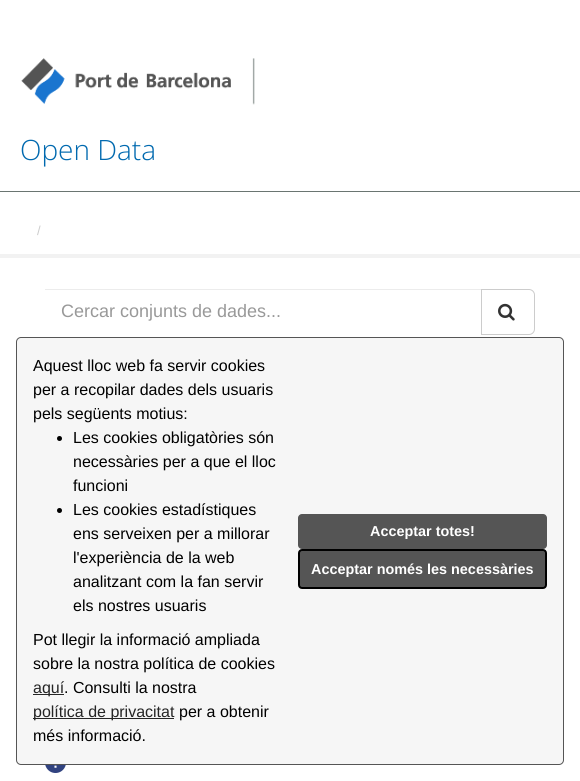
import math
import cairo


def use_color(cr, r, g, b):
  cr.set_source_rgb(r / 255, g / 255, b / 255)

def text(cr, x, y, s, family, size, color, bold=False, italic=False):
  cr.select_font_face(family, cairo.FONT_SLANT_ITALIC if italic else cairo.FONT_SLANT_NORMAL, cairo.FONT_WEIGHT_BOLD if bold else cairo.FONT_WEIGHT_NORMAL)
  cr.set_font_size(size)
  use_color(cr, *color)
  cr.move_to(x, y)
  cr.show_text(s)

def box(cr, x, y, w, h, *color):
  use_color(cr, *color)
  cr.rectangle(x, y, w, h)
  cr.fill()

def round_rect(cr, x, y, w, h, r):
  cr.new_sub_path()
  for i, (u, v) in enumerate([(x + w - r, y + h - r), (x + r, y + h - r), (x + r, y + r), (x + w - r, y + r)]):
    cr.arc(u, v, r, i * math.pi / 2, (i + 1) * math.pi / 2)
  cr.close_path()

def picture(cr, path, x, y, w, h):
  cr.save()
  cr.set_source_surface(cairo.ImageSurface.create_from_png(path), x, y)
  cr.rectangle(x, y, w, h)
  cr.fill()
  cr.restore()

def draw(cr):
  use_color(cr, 255, 255, 255)
  cr.paint()
  picture(cr, "img_01.png", 21, 58, 234, 47)
  box(cr, 0, 191, 580, 1, 106, 117, 113)
  cr.rectangle(-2, 256, 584, 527)
  use_color(cr, 242, 242, 242)
  cr.set_line_width(4)
  cr.stroke()
  box(cr, 45, 289, 437, 1, 236, 236, 236)
  use_color(cr, 255, 255, 255)
  cr.new_path()
  cr.move_to(481.5, 289.5)
  cr.line_to(529, 289.5)
  cr.curve_to(532, 289.5, 534.5, 292, 534.5, 295)
  cr.line_to(534.5, 329)
  cr.curve_to(534.5, 332, 532, 334.5, 529, 334.5)
  cr.line_to(481.5, 334.5)
  cr.close_path()
  cr.fill_preserve()
  use_color(cr, 204, 204, 204)
  cr.set_line_width(1)
  cr.stroke()
  picture(cr, "img_02.png", 498, 303, 17, 18)
  picture(cr, "img_03.png", 45, 765, 21, 8)
  use_color(cr, 246, 246, 246)
  round_rect(cr, 16.5, 337.5, 547, 427, 4.5)
  cr.fill_preserve()
  use_color(cr, 85, 85, 85)
  cr.stroke()
  use_color(cr, 0, 0, 0)
  cr.arc(59.5, 438.5, 2.5, 0, 2 * math.pi)
  cr.fill()
  cr.arc(59.5, 510.5, 2.5, 0, 2 * math.pi)
  cr.fill()
  box(cr, 33, 694, 31, 1, 37, 37, 37)
  box(cr, 33, 718, 141, 1, 37, 37, 37)
  use_color(cr, 85, 85, 85)
  round_rect(cr, 298, 514, 249, 35, 4)
  cr.fill()
  round_rect(cr, 299, 550, 247, 38, 3)
  cr.fill_preserve()
  use_color(cr, 0, 0, 0)
  cr.set_line_width(2)
  cr.stroke()
  text(cr, 20, 160, "Open Data", "Open Sans Light", 28, (0, 105, 175))
  text(cr, 37, 235, "/", "Liberation Sans", 13, (204, 204, 204))
  text(cr, 61, 317, "Cercar conjunts de dades...", "Liberation Sans", 18, (153, 153, 153))
  text(cr, 33, 371, "Aquest lloc web fa servir cookies", "Liberation Sans", 16, (0, 0, 0))
  text(cr, 33, 395, "per a recopilar dades dels usuaris", "Liberation Sans", 16, (0, 0, 0))
  text(cr, 33, 419, "pels següents motius:", "Liberation Sans", 16, (0, 0, 0))
  text(cr, 73, 443, "Les cookies obligatòries són", "Liberation Sans", 16, (0, 0, 0))
  text(cr, 73, 467, "necessàries per a que el lloc", "Liberation Sans", 16, (0, 0, 0))
  text(cr, 73, 491, "funcioni", "Liberation Sans", 16, (0, 0, 0))
  text(cr, 73, 515, "Les cookies estadístiques", "Liberation Sans", 16, (0, 0, 0))
  text(cr, 73, 539, "ens serveixen per a millorar", "Liberation Sans", 16, (0, 0, 0))
  text(cr, 73, 563, "l'experiència de la web", "Liberation Sans", 16, (0, 0, 0))
  text(cr, 73, 587, "analitzant com la fan servir", "Liberation Sans", 16, (0, 0, 0))
  text(cr, 73, 611, "els nostres usuaris", "Liberation Sans", 16, (0, 0, 0))
  text(cr, 33, 645, "Pot llegir la informació ampliada", "Liberation Sans", 16, (0, 0, 0))
  text(cr, 33, 669, "sobre la nostra política de cookies", "Liberation Sans", 16, (0, 0, 0))
  text(cr, 33, 693, "aquí", "Liberation Sans", 16, (37, 37, 37))
  text(cr, 64, 693, ". Consulti la nostra", "Liberation Sans", 16, (0, 0, 0))
  text(cr, 33, 717, "política de privacitat", "Liberation Sans", 16, (37, 37, 37))
  text(cr, 179, 717, "per a obtenir", "Liberation Sans", 16, (0, 0, 0))
  text(cr, 33, 741, "més informació.", "Liberation Sans", 16, (0, 0, 0))
  text(cr, 370, 536, "Acceptar totes!", "Liberation Sans", 14.4, (255, 255, 255), bold=True)
  text(cr, 311, 574, "Acceptar només les necessàries", "Liberation Sans", 14.4, (255, 255, 255), bold=True)


surface = cairo.ImageSurface(cairo.FORMAT_RGB24, 580, 781)
cr = cairo.Context(surface)
options = cairo.FontOptions()
options.set_hint_metrics(cairo.HINT_METRICS_OFF)
options.set_hint_style(cairo.HINT_STYLE_NONE)
cr.set_font_options(options)
cr.set_miter_limit(4)
draw(cr)
surface.write_to_png("out.png")
